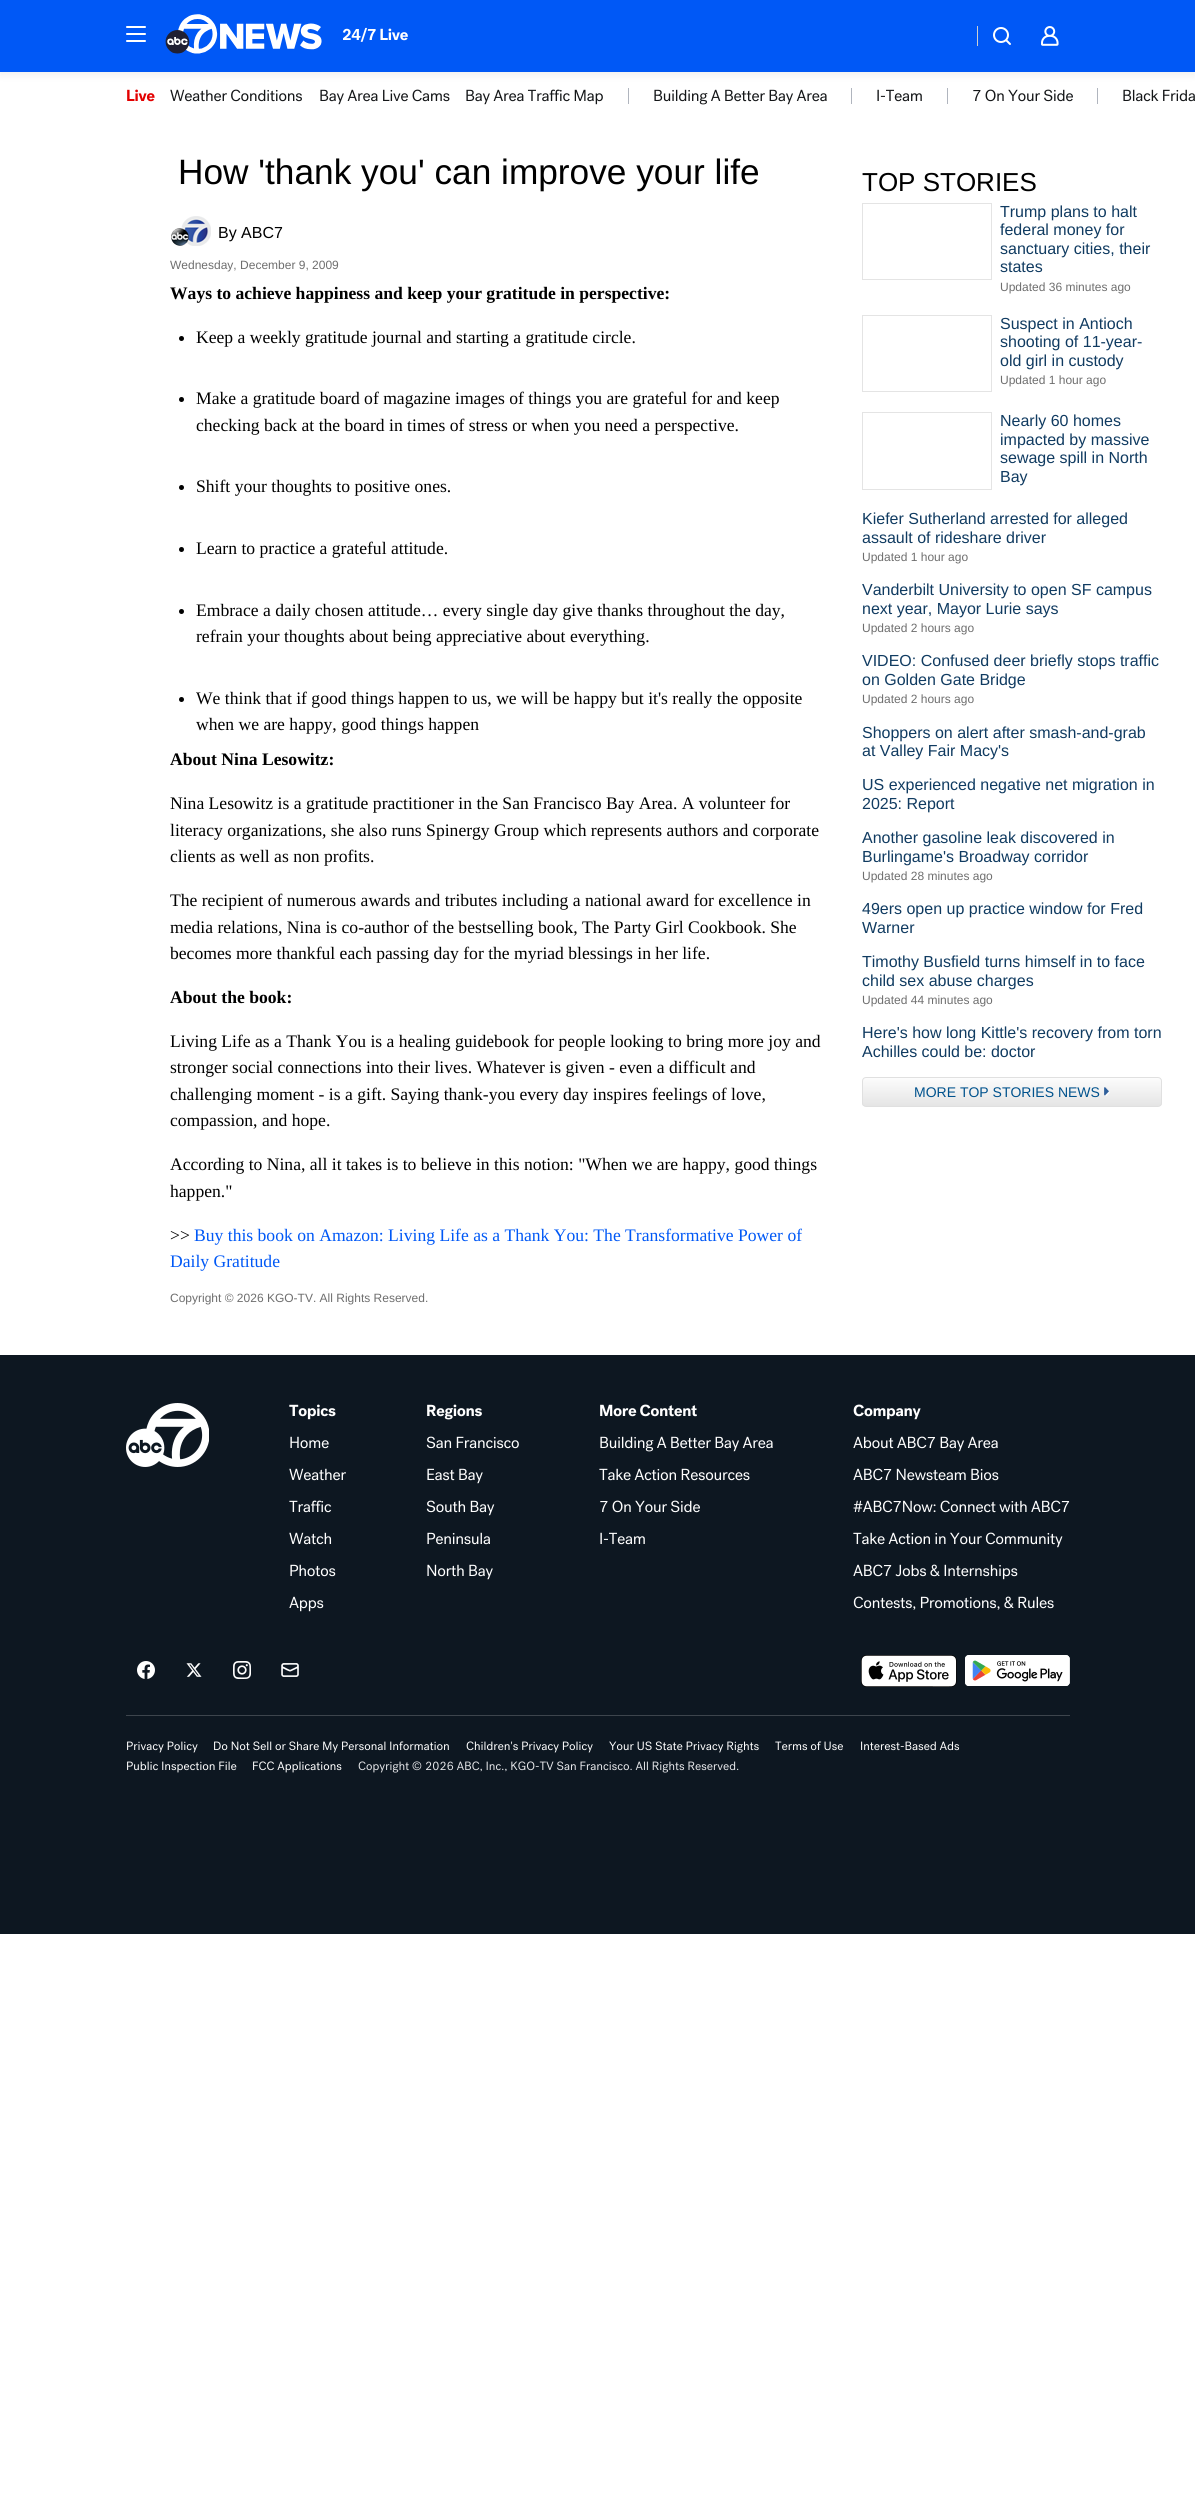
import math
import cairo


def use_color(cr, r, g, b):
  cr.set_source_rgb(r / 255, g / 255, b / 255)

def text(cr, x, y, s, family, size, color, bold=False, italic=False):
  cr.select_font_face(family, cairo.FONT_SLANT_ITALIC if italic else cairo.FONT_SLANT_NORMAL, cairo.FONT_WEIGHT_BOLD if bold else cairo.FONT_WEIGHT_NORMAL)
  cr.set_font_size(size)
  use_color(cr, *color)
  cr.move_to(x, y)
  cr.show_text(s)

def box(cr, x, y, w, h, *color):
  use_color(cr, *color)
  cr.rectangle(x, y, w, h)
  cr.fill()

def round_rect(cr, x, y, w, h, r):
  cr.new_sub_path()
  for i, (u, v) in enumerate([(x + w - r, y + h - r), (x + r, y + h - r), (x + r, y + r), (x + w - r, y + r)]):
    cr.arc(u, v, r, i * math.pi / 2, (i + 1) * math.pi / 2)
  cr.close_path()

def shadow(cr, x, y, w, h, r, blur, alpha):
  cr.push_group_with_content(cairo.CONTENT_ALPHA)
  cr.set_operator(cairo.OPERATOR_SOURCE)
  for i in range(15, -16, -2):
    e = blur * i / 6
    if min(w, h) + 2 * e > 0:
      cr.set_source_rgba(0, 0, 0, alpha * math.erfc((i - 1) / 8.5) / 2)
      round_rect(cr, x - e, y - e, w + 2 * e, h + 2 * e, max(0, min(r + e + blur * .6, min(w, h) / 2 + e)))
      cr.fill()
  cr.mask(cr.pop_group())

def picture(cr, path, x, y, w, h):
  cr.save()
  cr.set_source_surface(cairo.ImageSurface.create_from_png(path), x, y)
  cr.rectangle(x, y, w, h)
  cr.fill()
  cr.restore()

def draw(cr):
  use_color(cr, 255, 255, 255)
  cr.paint()
  picture(cr, "img_05.png", 127, 89, 28, 13)
  picture(cr, "img_06.png", 170, 89, 132, 13)
  picture(cr, "img_07.png", 320, 89, 130, 16)
  picture(cr, "img_08.png", 466, 89, 137, 16)
  box(cr, 628, 88, 1, 16, 176, 181, 190)
  picture(cr, "img_09.png", 654, 89, 173, 16)
  box(cr, 851, 88, 1, 16, 176, 181, 190)
  picture(cr, "img_10.png", 877, 89, 45, 13)
  box(cr, 947, 88, 1, 16, 176, 181, 190)
  picture(cr, "img_11.png", 973, 89, 100, 13)
  box(cr, 1097, 88, 1, 16, 176, 181, 190)
  picture(cr, "img_12.png", 1123, 89, 72, 13)
  use_color(cr, 0, 0, 0)
  shadow(cr, 0, 2, 1195, 72, 0, 5, 0.08)
  box(cr, 0, 0, 1195, 72, 0, 88, 246)
  use_color(cr, 255, 255, 255)
  round_rect(cr, 126, 33, 20, 2, 1)
  cr.fill()
  round_rect(cr, 126, 26, 20, 2, 1)
  cr.fill()
  round_rect(cr, 126, 40, 20, 2, 1)
  cr.fill()
  picture(cr, "img_01.png", 165, 14, 157, 40)
  picture(cr, "img_02.png", 342, 27, 66, 15)
  box(cr, 977, 26, 1, 20, 206, 207, 207)
  picture(cr, "img_03.png", 993, 27, 18, 18)
  picture(cr, "img_04.png", 1041, 26, 18, 20)
  picture(cr, "img_13.png", 171, 216, 40, 30)
  use_color(cr, 0, 0, 0)
  cr.arc(181.5, 338.5, 2.5, 0, 2 * math.pi)
  cr.fill()
  cr.arc(181.5, 399.5, 2.5, 0, 2 * math.pi)
  cr.fill()
  cr.arc(181.5, 487.5, 2.5, 0, 2 * math.pi)
  cr.fill()
  cr.arc(181.5, 549.5, 2.5, 0, 2 * math.pi)
  cr.fill()
  cr.arc(181.5, 611.5, 2.5, 0, 2 * math.pi)
  cr.fill()
  cr.arc(181.5, 699.5, 2.5, 0, 2 * math.pi)
  cr.fill()
  cr.rectangle(862.5, 203.5, 129, 76)
  use_color(cr, 228, 228, 228)
  cr.set_line_width(1)
  cr.stroke()
  cr.rectangle(862.5, 315.5, 129, 76)
  cr.stroke()
  cr.rectangle(862.5, 412.5, 129, 77)
  cr.stroke()
  cr.save()
  round_rect(cr, 862, 1077, 300, 30, 4)
  cr.clip()
  gradient = cairo.LinearGradient(1012, 1078, 1012, 1106)
  gradient.add_color_stop_rgba(0, 0.988, 0.988, 0.988, 1)
  gradient.add_color_stop_rgba(1, 0.898, 0.898, 0.898, 1)
  cr.set_source(gradient)
  cr.rectangle(862, 1078, 300, 28)
  cr.fill()
  cr.restore()
  round_rect(cr, 862.5, 1077.5, 299, 29, 3.5)
  use_color(cr, 224, 224, 224)
  cr.stroke()
  picture(cr, "img_14.png", 1104, 1087, 6, 9)
  box(cr, 0, 1355, 1195, 579, 13, 23, 33)
  picture(cr, "img_15.png", 126, 1403, 83, 64)
  picture(cr, "img_16.png", 289, 1404, 47, 16)
  picture(cr, "img_17.png", 290, 1436, 39, 13)
  picture(cr, "img_18.png", 289, 1468, 57, 13)
  picture(cr, "img_19.png", 289, 1500, 43, 13)
  picture(cr, "img_20.png", 289, 1532, 43, 13)
  picture(cr, "img_21.png", 290, 1564, 46, 13)
  picture(cr, "img_22.png", 289, 1596, 35, 16)
  picture(cr, "img_23.png", 427, 1404, 55, 16)
  picture(cr, "img_24.png", 426, 1436, 93, 13)
  picture(cr, "img_25.png", 427, 1468, 56, 16)
  picture(cr, "img_26.png", 426, 1500, 69, 16)
  picture(cr, "img_27.png", 427, 1532, 63, 13)
  picture(cr, "img_28.png", 427, 1564, 66, 16)
  picture(cr, "img_29.png", 600, 1404, 97, 13)
  picture(cr, "img_30.png", 600, 1436, 173, 16)
  picture(cr, "img_31.png", 599, 1468, 151, 13)
  picture(cr, "img_32.png", 600, 1500, 100, 13)
  picture(cr, "img_33.png", 600, 1532, 45, 13)
  picture(cr, "img_34.png", 853, 1404, 68, 16)
  picture(cr, "img_35.png", 853, 1436, 145, 16)
  picture(cr, "img_36.png", 853, 1468, 146, 13)
  picture(cr, "img_37.png", 853, 1500, 217, 13)
  picture(cr, "img_38.png", 853, 1532, 210, 16)
  picture(cr, "img_39.png", 853, 1564, 165, 16)
  picture(cr, "img_40.png", 853, 1596, 201, 14)
  picture(cr, "img_41.png", 137, 1661, 18, 18)
  picture(cr, "img_42.png", 186, 1663, 16, 14)
  picture(cr, "img_43.png", 233, 1661, 18, 18)
  picture(cr, "img_44.png", 281, 1663, 18, 14)
  picture(cr, "img_45.png", 861, 1655, 96, 32)
  picture(cr, "img_46.png", 965, 1655, 105, 31)
  box(cr, 126, 1715, 944, 1, 61, 69, 77)
  picture(cr, "img_47.png", 127, 1741, 71, 12)
  picture(cr, "img_48.png", 214, 1741, 235, 12)
  picture(cr, "img_49.png", 466, 1741, 127, 12)
  picture(cr, "img_50.png", 609, 1741, 150, 12)
  picture(cr, "img_51.png", 775, 1741, 68, 10)
  picture(cr, "img_52.png", 861, 1741, 99, 10)
  picture(cr, "img_53.png", 127, 1761, 110, 12)
  picture(cr, "img_54.png", 253, 1761, 89, 12)
  picture(cr, "img_55.png", 358, 1761, 64, 12)
  picture(cr, "img_56.png", 426, 1761, 313, 12)
  text(cr, 178, 184, "How 'thank you' can improve your life", "Liberation Sans", 35.25, (0, 0, 0))
  text(cr, 218, 238, "By ABC7", "Liberation Sans", 16, (0, 0, 0))
  text(cr, 170, 269, "Wednesday, December 9, 2009", "Liberation Sans", 12, (110, 110, 110))
  text(cr, 170, 299, "Ways to achieve happiness and keep your gratitude in perspective:", "Liberation Serif", 17.6, (0, 0, 0), bold=True)
  text(cr, 196, 343, "Keep a weekly gratitude journal and starting a gratitude circle.", "Liberation Serif", 17.6, (0, 0, 0))
  text(cr, 196, 404, "Make a gratitude board of magazine images of things you are grateful for and keep", "Liberation Serif", 17.6, (0, 0, 0))
  text(cr, 196, 431, "checking back at the board in times of stress or when you need a perspective.", "Liberation Serif", 17.6, (0, 0, 0))
  text(cr, 196, 492, "Shift your thoughts to positive ones.", "Liberation Serif", 17.6, (0, 0, 0))
  text(cr, 196, 554, "Learn to practice a grateful attitude.", "Liberation Serif", 17.6, (0, 0, 0))
  text(cr, 196, 616, "Embrace a daily chosen attitude… every single day give thanks throughout the day,", "Liberation Serif", 17.6, (0, 0, 0))
  text(cr, 196, 642, "refrain your thoughts about being appreciative about everything.", "Liberation Serif", 17.6, (0, 0, 0))
  text(cr, 196, 704, "We think that if good things happen to us, we will be happy but it's really the opposite", "Liberation Serif", 17.6, (0, 0, 0))
  text(cr, 196, 730, "when we are happy, good things happen", "Liberation Serif", 17.6, (0, 0, 0))
  text(cr, 170, 765, "About Nina Lesowitz:", "Liberation Serif", 17.6, (0, 0, 0), bold=True)
  text(cr, 170, 809, "Nina Lesowitz is a gratitude practitioner in the San Francisco Bay Area. A volunteer for", "Liberation Serif", 17.6, (0, 0, 0))
  text(cr, 170, 836, "literacy organizations, she also runs Spinergy Group which represents authors and corporate", "Liberation Serif", 17.6, (0, 0, 0))
  text(cr, 170, 862, "clients as well as non profits.", "Liberation Serif", 17.6, (0, 0, 0))
  text(cr, 170, 906, "The recipient of numerous awards and tributes including a national award for excellence in", "Liberation Serif", 17.6, (0, 0, 0))
  text(cr, 170, 933, "media relations, Nina is co-author of the bestselling book, The Party Girl Cookbook. She", "Liberation Serif", 17.6, (0, 0, 0))
  text(cr, 170, 959, "becomes more thankful each passing day for the myriad blessings in her life.", "Liberation Serif", 17.6, (0, 0, 0))
  text(cr, 170, 1003, "About the book:", "Liberation Serif", 17.6, (0, 0, 0), bold=True)
  text(cr, 170, 1047, "Living Life as a Thank You is a healing guidebook for people looking to bring more joy and", "Liberation Serif", 17.6, (0, 0, 0))
  text(cr, 170, 1073, "stronger social connections into their lives. Whatever is given - even a difficult and", "Liberation Serif", 17.6, (0, 0, 0))
  text(cr, 170, 1100, "challenging moment - is a gift. Saying thank-you every day inspires feelings of love,", "Liberation Serif", 17.6, (0, 0, 0))
  text(cr, 170, 1126, "compassion, and hope.", "Liberation Serif", 17.6, (0, 0, 0))
  text(cr, 170, 1170, "According to Nina, all it takes is to believe in this notion: \"When we are happy, good things", "Liberation Serif", 17.6, (0, 0, 0))
  text(cr, 170, 1197, "happen.\"", "Liberation Serif", 17.6, (0, 0, 0))
  text(cr, 170, 1241, ">>", "Liberation Serif", 17.6, (0, 0, 0))
  text(cr, 194, 1241, "Buy this book on Amazon: Living Life as a Thank You: The Transformative Power of", "Liberation Serif", 17.6, (0, 88, 246))
  text(cr, 170, 1267, "Daily Gratitude", "Liberation Serif", 17.6, (0, 88, 246))
  text(cr, 170, 1302, "Copyright © 2026 KGO-TV. All Rights Reserved.", "Liberation Sans", 12, (110, 110, 110))
  text(cr, 862, 191, "TOP STORIES", "Liberation Sans", 26, (0, 0, 0))
  text(cr, 1000, 217, "Trump plans to halt", "Liberation Sans", 16, (16, 59, 97))
  text(cr, 1000, 235, "federal money for", "Liberation Sans", 16, (16, 59, 97))
  text(cr, 1000, 254, "sanctuary cities, their", "Liberation Sans", 16, (16, 59, 97))
  text(cr, 1000, 272, "states", "Liberation Sans", 16, (16, 59, 97))
  text(cr, 1000, 291, "Updated 36 minutes ago", "Liberation Sans", 12, (110, 110, 110))
  text(cr, 1000, 329, "Suspect in Antioch", "Liberation Sans", 16, (16, 59, 97))
  text(cr, 1000, 347, "shooting of 11-year-", "Liberation Sans", 16, (16, 59, 97))
  text(cr, 1000, 366, "old girl in custody", "Liberation Sans", 16, (16, 59, 97))
  text(cr, 1000, 384, "Updated 1 hour ago", "Liberation Sans", 12, (110, 110, 110))
  text(cr, 1000, 426, "Nearly 60 homes", "Liberation Sans", 16, (16, 59, 97))
  text(cr, 1000, 445, "impacted by massive", "Liberation Sans", 16, (16, 59, 97))
  text(cr, 1000, 463, "sewage spill in North", "Liberation Sans", 16, (16, 59, 97))
  text(cr, 1000, 482, "Bay", "Liberation Sans", 16, (16, 59, 97))
  text(cr, 862, 524, "Kiefer Sutherland arrested for alleged", "Liberation Sans", 16, (16, 59, 97))
  text(cr, 862, 543, "assault of rideshare driver", "Liberation Sans", 16, (16, 59, 97))
  text(cr, 862, 561, "Updated 1 hour ago", "Liberation Sans", 12, (110, 110, 110))
  text(cr, 862, 595, "Vanderbilt University to open SF campus", "Liberation Sans", 16, (16, 59, 97))
  text(cr, 862, 614, "next year, Mayor Lurie says", "Liberation Sans", 16, (16, 59, 97))
  text(cr, 862, 632, "Updated 2 hours ago", "Liberation Sans", 12, (110, 110, 110))
  text(cr, 862, 666, "VIDEO: Confused deer briefly stops traffic", "Liberation Sans", 16, (16, 59, 97))
  text(cr, 862, 685, "on Golden Gate Bridge", "Liberation Sans", 16, (16, 59, 97))
  text(cr, 862, 703, "Updated 2 hours ago", "Liberation Sans", 12, (110, 110, 110))
  text(cr, 862, 738, "Shoppers on alert after smash-and-grab", "Liberation Sans", 16, (16, 59, 97))
  text(cr, 862, 756, "at Valley Fair Macy's", "Liberation Sans", 16, (16, 59, 97))
  text(cr, 862, 790, "US experienced negative net migration in", "Liberation Sans", 16, (16, 59, 97))
  text(cr, 862, 809, "2025: Report", "Liberation Sans", 16, (16, 59, 97))
  text(cr, 862, 843, "Another gasoline leak discovered in", "Liberation Sans", 16, (16, 59, 97))
  text(cr, 862, 862, "Burlingame's Broadway corridor", "Liberation Sans", 16, (16, 59, 97))
  text(cr, 862, 880, "Updated 28 minutes ago", "Liberation Sans", 12, (110, 110, 110))
  text(cr, 862, 914, "49ers open up practice window for Fred", "Liberation Sans", 16, (16, 59, 97))
  text(cr, 862, 933, "Warner", "Liberation Sans", 16, (16, 59, 97))
  text(cr, 862, 967, "Timothy Busfield turns himself in to face", "Liberation Sans", 16, (16, 59, 97))
  text(cr, 862, 986, "child sex abuse charges", "Liberation Sans", 16, (16, 59, 97))
  text(cr, 862, 1004, "Updated 44 minutes ago", "Liberation Sans", 12, (110, 110, 110))
  text(cr, 862, 1038, "Here's how long Kittle's recovery from torn", "Liberation Sans", 16, (16, 59, 97))
  text(cr, 862, 1057, "Achilles could be: doctor", "Liberation Sans", 16, (16, 59, 97))
  text(cr, 914, 1097, "MORE TOP STORIES NEWS", "Liberation Sans", 14, (0, 82, 141))


surface = cairo.ImageSurface(cairo.FORMAT_RGB24, 1195, 2516)
cr = cairo.Context(surface)
options = cairo.FontOptions()
options.set_hint_metrics(cairo.HINT_METRICS_OFF)
options.set_hint_style(cairo.HINT_STYLE_NONE)
cr.set_font_options(options)
cr.set_miter_limit(4)
draw(cr)
surface.write_to_png("out.png")
